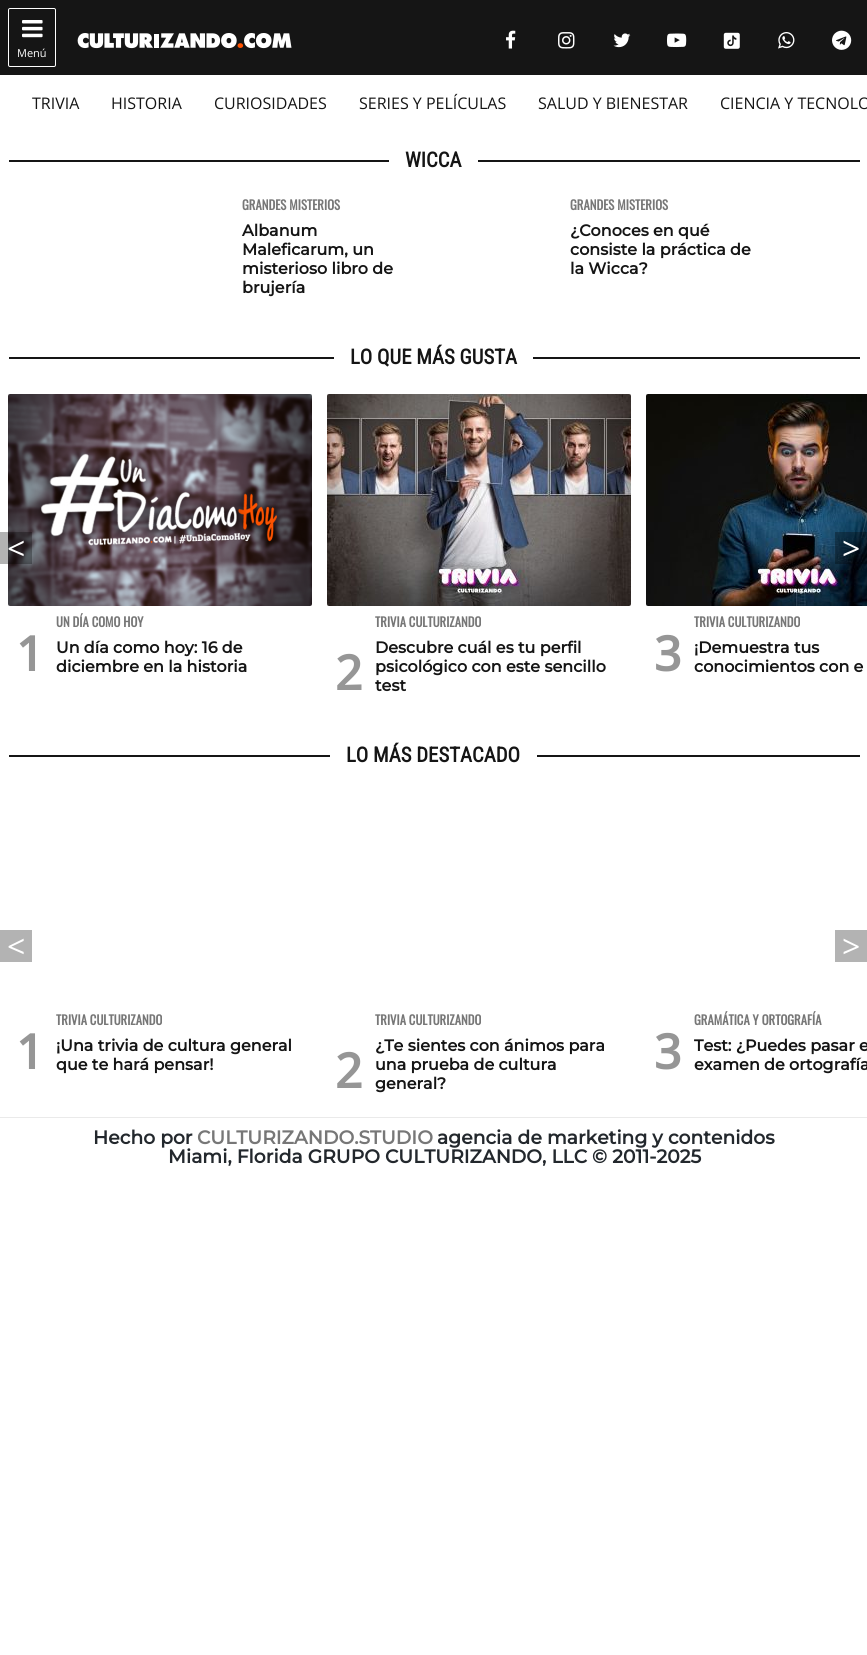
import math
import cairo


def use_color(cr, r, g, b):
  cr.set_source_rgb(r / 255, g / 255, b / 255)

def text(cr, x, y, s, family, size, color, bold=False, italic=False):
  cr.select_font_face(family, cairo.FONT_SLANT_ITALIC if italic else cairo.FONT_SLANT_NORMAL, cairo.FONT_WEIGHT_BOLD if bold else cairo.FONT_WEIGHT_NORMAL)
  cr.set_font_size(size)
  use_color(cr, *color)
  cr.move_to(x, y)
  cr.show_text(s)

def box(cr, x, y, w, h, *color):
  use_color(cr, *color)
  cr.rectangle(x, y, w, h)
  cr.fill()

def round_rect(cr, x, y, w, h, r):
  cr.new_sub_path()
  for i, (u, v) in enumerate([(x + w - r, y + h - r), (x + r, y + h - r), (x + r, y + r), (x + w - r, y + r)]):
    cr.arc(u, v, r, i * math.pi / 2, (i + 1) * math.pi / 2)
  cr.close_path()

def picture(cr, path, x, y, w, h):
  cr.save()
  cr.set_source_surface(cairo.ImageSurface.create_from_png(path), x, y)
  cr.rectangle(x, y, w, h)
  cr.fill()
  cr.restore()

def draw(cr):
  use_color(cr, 255, 255, 255)
  cr.paint()
  box(cr, 0, 0, 867, 75, 21, 21, 21)
  picture(cr, "img_01.png", 77, 33, 215, 16)
  picture(cr, "img_02.png", 506, 30, 10, 19)
  picture(cr, "img_03.png", 558, 32, 17, 17)
  picture(cr, "img_04.png", 613, 33, 18, 15)
  picture(cr, "img_05.png", 667, 33, 20, 15)
  picture(cr, "img_06.png", 723, 32, 17, 17)
  picture(cr, "img_07.png", 778, 32, 17, 17)
  picture(cr, "img_08.png", 832, 30, 20, 20)
  round_rect(cr, 8.5, 8.5, 47, 58, 1.5)
  use_color(cr, 255, 255, 255)
  cr.set_line_width(1)
  cr.stroke()
  picture(cr, "img_09.png", 22, 20, 21, 18)
  box(cr, 9, 160, 851, 2, 21, 21, 21)
  box(cr, 389, 160, 89, 2, 255, 255, 255)
  box(cr, 9, 357, 851, 2, 21, 21, 21)
  box(cr, 334, 357, 199, 2, 255, 255, 255)
  picture(cr, "img_10.png", 8, 394, 304, 212)
  cr.set_source_rgba(0, 0, 0, 0.3)
  cr.rectangle(0, 532, 32, 32)
  cr.fill()
  picture(cr, "img_12.png", 646, 394, 221, 212)
  cr.rectangle(835, 532, 32, 32)
  cr.fill()
  picture(cr, "img_11.png", 327, 394, 304, 212)
  box(cr, 9, 755, 851, 2, 21, 21, 21)
  box(cr, 330, 755, 207, 2, 255, 255, 255)
  box(cr, 0, 930, 32, 32, 179, 179, 179)
  box(cr, 835, 930, 32, 32, 179, 179, 179)
  box(cr, 0, 1117, 867, 1, 234, 234, 234)
  text(cr, 17, 57, "Menú", "Open Sans", 11, (255, 255, 255))
  text(cr, 32, 109, "TRIVIA", "Open Sans", 16, (21, 21, 21))
  text(cr, 111, 109, "HISTORIA", "Open Sans", 16, (21, 21, 21))
  text(cr, 214, 109, "CURIOSIDADES", "Open Sans", 16, (21, 21, 21))
  text(cr, 359, 109, "SERIES Y PELÍCULAS", "Open Sans", 16, (21, 21, 21))
  text(cr, 538, 109, "SALUD Y BIENESTAR", "Open Sans", 16, (21, 21, 21))
  text(cr, 720, 109, "CIENCIA Y TECNOLO", "Open Sans", 16, (21, 21, 21))
  text(cr, 405, 167, "WICCA", "Roboto Condensed", 20.75, (21, 21, 21), bold=True)
  text(cr, 242, 210, "GRANDES MISTERIOS", "Oswald", 12.75, (119, 119, 119), bold=True)
  text(cr, 242, 236, "Albanum", "Montserrat", 16, (21, 21, 21), bold=True)
  text(cr, 242, 255, "Maleficarum, un", "Montserrat", 16, (21, 21, 21), bold=True)
  text(cr, 242, 274, "misterioso libro de", "Montserrat", 16, (21, 21, 21), bold=True)
  text(cr, 242, 293, "brujería", "Montserrat", 16, (21, 21, 21), bold=True)
  text(cr, 570, 210, "GRANDES MISTERIOS", "Oswald", 12.75, (119, 119, 119), bold=True)
  text(cr, 570, 236, "¿Conoces en qué", "Montserrat", 16, (21, 21, 21), bold=True)
  text(cr, 570, 255, "consiste la práctica de", "Montserrat", 16, (21, 21, 21), bold=True)
  text(cr, 570, 274, "la Wicca?", "Montserrat", 16, (21, 21, 21), bold=True)
  text(cr, 350, 364, "LO QUE MÁS GUSTA", "Roboto Condensed", 20.75, (21, 21, 21), bold=True)
  text(cr, 7, 560, "<", "Open Sans", 32, (255, 255, 255))
  text(cr, 842, 560, ">", "Open Sans", 32, (255, 255, 255))
  text(cr, 16, 671, "1", "Open Sans", 48, (150, 150, 150), bold=True)
  text(cr, 56, 627, "UN DÍA COMO HOY", "Oswald", 12.75, (119, 119, 119), bold=True)
  text(cr, 56, 653, "Un día como hoy: 16 de", "Montserrat", 16, (21, 21, 21), bold=True)
  text(cr, 56, 672, "diciembre en la historia", "Montserrat", 16, (21, 21, 21), bold=True)
  text(cr, 335, 690, "2", "Open Sans", 48, (150, 150, 150), bold=True)
  text(cr, 375, 627, "TRIVIA CULTURIZANDO", "Oswald", 12.75, (119, 119, 119), bold=True)
  text(cr, 375, 653, "Descubre cuál es tu perfil", "Montserrat", 16, (21, 21, 21), bold=True)
  text(cr, 375, 672, "psicológico con este sencillo", "Montserrat", 16, (21, 21, 21), bold=True)
  text(cr, 375, 691, "test", "Montserrat", 16, (21, 21, 21), bold=True)
  text(cr, 654, 671, "3", "Open Sans", 48, (150, 150, 150), bold=True)
  text(cr, 694, 627, "TRIVIA CULTURIZANDO", "Oswald", 12.75, (119, 119, 119), bold=True)
  text(cr, 694, 653, "¡Demuestra tus", "Montserrat", 16, (21, 21, 21), bold=True)
  text(cr, 694, 672, "conocimientos con e", "Montserrat", 16, (21, 21, 21), bold=True)
  text(cr, 346, 762, "LO MÁS DESTACADO", "Roboto Condensed", 20.75, (21, 21, 21), bold=True)
  text(cr, 7, 958, "<", "Open Sans", 32, (255, 255, 255))
  text(cr, 842, 958, ">", "Open Sans", 32, (255, 255, 255))
  text(cr, 16, 1069, "1", "Open Sans", 48, (150, 150, 150), bold=True)
  text(cr, 56, 1025, "TRIVIA CULTURIZANDO", "Oswald", 12.75, (119, 119, 119), bold=True)
  text(cr, 56, 1051, "¡Una trivia de cultura general", "Montserrat", 16, (21, 21, 21), bold=True)
  text(cr, 56, 1070, "que te hará pensar!", "Montserrat", 16, (21, 21, 21), bold=True)
  text(cr, 335, 1088, "2", "Open Sans", 48, (150, 150, 150), bold=True)
  text(cr, 375, 1025, "TRIVIA CULTURIZANDO", "Oswald", 12.75, (119, 119, 119), bold=True)
  text(cr, 375, 1051, "¿Te sientes con ánimos para", "Montserrat", 16, (21, 21, 21), bold=True)
  text(cr, 375, 1070, "una prueba de cultura", "Montserrat", 16, (21, 21, 21), bold=True)
  text(cr, 375, 1089, "general?", "Montserrat", 16, (21, 21, 21), bold=True)
  text(cr, 654, 1069, "3", "Open Sans", 48, (150, 150, 150), bold=True)
  text(cr, 694, 1025, "GRAMÁTICA Y ORTOGRAFÍA", "Oswald", 12.75, (119, 119, 119), bold=True)
  text(cr, 694, 1051, "Test: ¿Puedes pasar e", "Montserrat", 16, (21, 21, 21), bold=True)
  text(cr, 694, 1070, "examen de ortografía", "Montserrat", 16, (21, 21, 21), bold=True)
  text(cr, 93, 1144, "Hecho por", "Montserrat", 18.75, (35, 40, 45), bold=True)
  text(cr, 197, 1144, "CULTURIZANDO.STUDIO", "Montserrat", 18.75, (119, 119, 119), bold=True)
  text(cr, 437, 1144, "agencia de marketing y contenidos", "Montserrat", 18.75, (35, 40, 45), bold=True)
  text(cr, 168, 1163, "Miami, Florida GRUPO CULTURIZANDO, LLC © 2011-2025", "Montserrat", 18.75, (35, 40, 45), bold=True)


surface = cairo.ImageSurface(cairo.FORMAT_RGB24, 867, 1655)
cr = cairo.Context(surface)
options = cairo.FontOptions()
options.set_hint_metrics(cairo.HINT_METRICS_OFF)
options.set_hint_style(cairo.HINT_STYLE_NONE)
cr.set_font_options(options)
cr.set_miter_limit(4)
draw(cr)
surface.write_to_png("out.png")
